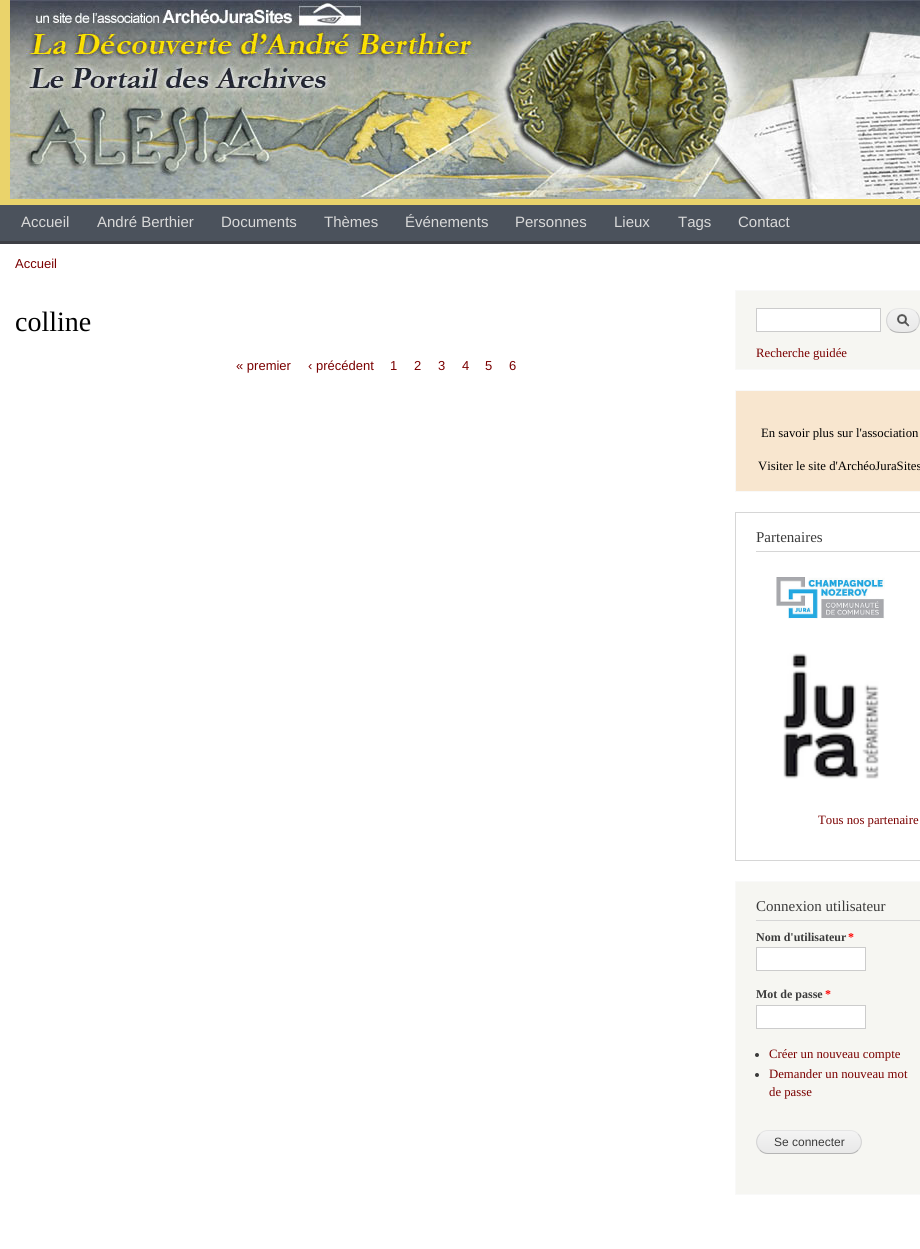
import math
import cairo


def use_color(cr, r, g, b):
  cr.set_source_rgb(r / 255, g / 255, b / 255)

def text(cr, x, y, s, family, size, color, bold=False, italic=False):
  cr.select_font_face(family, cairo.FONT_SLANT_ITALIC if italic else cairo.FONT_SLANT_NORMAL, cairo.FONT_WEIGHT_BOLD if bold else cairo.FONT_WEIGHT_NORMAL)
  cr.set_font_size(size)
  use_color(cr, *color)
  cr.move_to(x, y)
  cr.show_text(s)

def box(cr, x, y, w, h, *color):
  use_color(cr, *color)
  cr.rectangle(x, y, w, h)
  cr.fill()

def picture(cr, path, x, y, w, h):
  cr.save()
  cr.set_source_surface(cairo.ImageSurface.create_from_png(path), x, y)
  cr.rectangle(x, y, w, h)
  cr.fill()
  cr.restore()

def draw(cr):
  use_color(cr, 255, 255, 255)
  cr.paint()
  box(cr, 0, 0, 920, 205, 234, 211, 107)
  picture(cr, "img_01.png", 10, 0, 910, 199)
  box(cr, 0, 205, 920, 36, 75, 82, 92)
  box(cr, 0, 241, 920, 3, 61, 63, 69)
  use_color(cr, 246, 246, 242)
  cr.rectangle(735.5, 290.5, 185, 79)
  cr.fill_preserve()
  use_color(cr, 249, 249, 249)
  cr.set_line_width(1)
  cr.stroke()
  use_color(cr, 255, 255, 255)
  cr.rectangle(756.5, 308.5, 124, 23)
  cr.fill_preserve()
  use_color(cr, 204, 204, 204)
  cr.stroke()
  picture(cr, "img_02.png", 886, 310, 34, 23)
  cr.new_path()
  cr.move_to(890, 312)
  cr.curve_to(893.5, 308.5, 898, 308.5, 903, 308.5)
  cr.curve_to(908, 308.5, 912.5, 308.5, 916, 312)
  use_color(cr, 228, 228, 228)
  cr.stroke()
  cr.new_path()
  cr.move_to(916, 312)
  cr.curve_to(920.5, 316.5, 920.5, 324.5, 916, 329)
  use_color(cr, 210, 210, 210)
  cr.stroke()
  cr.new_path()
  cr.move_to(916, 329)
  cr.curve_to(912.5, 332.5, 908, 332.5, 903, 332.5)
  cr.curve_to(898, 332.5, 893.5, 332.5, 890, 329)
  use_color(cr, 180, 180, 180)
  cr.stroke()
  cr.new_path()
  cr.move_to(890, 329)
  cr.curve_to(885.5, 324.5, 885.5, 316.5, 890, 312)
  use_color(cr, 210, 210, 210)
  cr.stroke()
  use_color(cr, 248, 230, 207)
  cr.rectangle(735.5, 390.5, 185, 101)
  cr.fill_preserve()
  use_color(cr, 249, 249, 249)
  cr.stroke()
  cr.rectangle(735.5, 512.5, 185, 348)
  use_color(cr, 214, 214, 214)
  cr.stroke()
  box(cr, 756, 551, 164, 1, 214, 214, 214)
  picture(cr, "img_03.png", 776, 577, 109, 42)
  picture(cr, "img_04.png", 783, 653, 96, 126)
  use_color(cr, 246, 246, 242)
  cr.rectangle(735.5, 881.5, 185, 313)
  cr.fill_preserve()
  use_color(cr, 249, 249, 249)
  cr.stroke()
  box(cr, 756, 920, 164, 1, 214, 214, 214)
  use_color(cr, 255, 255, 255)
  cr.rectangle(756.5, 947.5, 109, 23)
  cr.fill_preserve()
  use_color(cr, 204, 204, 204)
  cr.stroke()
  use_color(cr, 255, 255, 255)
  cr.rectangle(756.5, 1005.5, 109, 23)
  cr.fill_preserve()
  use_color(cr, 204, 204, 204)
  cr.stroke()
  use_color(cr, 59, 59, 59)
  cr.arc(757, 1055, 2, 0, 2 * math.pi)
  cr.fill()
  cr.arc(757, 1075, 2, 0, 2 * math.pi)
  cr.fill()
  picture(cr, "img_05.png", 756, 1131, 106, 23)
  cr.new_path()
  cr.move_to(760, 1134)
  cr.curve_to(762, 1131.5, 765, 1130.5, 768, 1130.5)
  cr.line_to(850, 1130.5)
  cr.curve_to(853, 1130.5, 856, 1131.5, 858, 1134)
  use_color(cr, 228, 228, 228)
  cr.stroke()
  cr.new_path()
  cr.move_to(858, 1134)
  cr.curve_to(862.5, 1138.5, 862.5, 1145.5, 858, 1150)
  use_color(cr, 210, 210, 210)
  cr.stroke()
  cr.new_path()
  cr.move_to(858, 1150)
  cr.curve_to(856, 1152.5, 853, 1153.5, 850, 1153.5)
  cr.line_to(768, 1153.5)
  cr.curve_to(765, 1153.5, 762, 1152.5, 760, 1150)
  use_color(cr, 180, 180, 180)
  cr.stroke()
  cr.new_path()
  cr.move_to(760, 1150)
  cr.curve_to(755.5, 1145.5, 755.5, 1138.5, 760, 1134)
  use_color(cr, 210, 210, 210)
  cr.stroke()
  text(cr, 21, 227, "Accueil", "Liberation Sans", 15, (217, 217, 217))
  text(cr, 97, 227, "André Berthier", "Liberation Sans", 15, (217, 217, 217))
  text(cr, 221, 227, "Documents", "Liberation Sans", 15, (217, 217, 217))
  text(cr, 324, 227, "Thèmes", "Liberation Sans", 15, (217, 217, 217))
  text(cr, 405, 227, "Événements", "Liberation Sans", 15, (217, 217, 217))
  text(cr, 515, 227, "Personnes", "Liberation Sans", 15, (217, 217, 217))
  text(cr, 614, 227, "Lieux", "Liberation Sans", 15, (217, 217, 217))
  text(cr, 678, 227, "Tags", "Liberation Sans", 15, (217, 217, 217))
  text(cr, 738, 227, "Contact", "Liberation Sans", 15, (217, 217, 217))
  text(cr, 15, 268, "Accueil", "Liberation Sans", 13, (122, 0, 0))
  text(cr, 15, 331, "colline", "Liberation Serif", 28, (0, 0, 0))
  text(cr, 236, 370, "« premier", "Liberation Sans", 13, (122, 0, 0))
  text(cr, 308, 370, "‹ précédent", "Liberation Sans", 13, (122, 0, 0))
  text(cr, 390, 370, "1", "Liberation Sans", 13, (122, 0, 0))
  text(cr, 414, 370, "2", "Liberation Sans", 13, (122, 0, 0))
  text(cr, 438, 370, "3", "Liberation Sans", 13, (122, 0, 0))
  text(cr, 462, 370, "4", "Liberation Sans", 13, (122, 0, 0))
  text(cr, 485, 370, "5", "Liberation Sans", 13, (122, 0, 0))
  text(cr, 509, 370, "6", "Liberation Sans", 13, (122, 0, 0))
  text(cr, 756, 357, "Recherche guidée", "Liberation Serif", 12.75, (122, 0, 0))
  text(cr, 761, 437, "En savoir plus sur l'association", "Liberation Serif", 12.75, (0, 0, 0))
  text(cr, 758, 470, "Visiter le site d'ArchéoJuraSites", "Liberation Serif", 12.75, (0, 0, 0))
  text(cr, 756, 542, "Partenaires", "Liberation Serif", 15, (59, 59, 59))
  text(cr, 818, 824, "Tous nos partenaire", "Liberation Serif", 12.75, (122, 0, 0))
  text(cr, 756, 911, "Connexion utilisateur", "Liberation Serif", 15, (59, 59, 59))
  text(cr, 756, 941, "Nom d'utilisateur", "Liberation Serif", 12, (59, 59, 59), bold=True)
  text(cr, 848, 941, "*", "Liberation Serif", 12, (255, 0, 0), bold=True)
  text(cr, 756, 998, "Mot de passe", "Liberation Serif", 12, (59, 59, 59), bold=True)
  text(cr, 825, 998, "*", "Liberation Serif", 12, (255, 0, 0), bold=True)
  text(cr, 769, 1058, "Créer un nouveau compte", "Liberation Serif", 12.75, (122, 0, 0))
  text(cr, 769, 1078, "Demander un nouveau mot", "Liberation Serif", 12.75, (122, 0, 0))
  text(cr, 769, 1096, "de passe", "Liberation Serif", 12.75, (122, 0, 0))
  text(cr, 774, 1146, "Se connecter", "Liberation Sans", 12, (59, 59, 59))


surface = cairo.ImageSurface(cairo.FORMAT_RGB24, 920, 1249)
cr = cairo.Context(surface)
options = cairo.FontOptions()
options.set_hint_metrics(cairo.HINT_METRICS_OFF)
options.set_hint_style(cairo.HINT_STYLE_NONE)
cr.set_font_options(options)
cr.set_miter_limit(4)
draw(cr)
surface.write_to_png("out.png")
